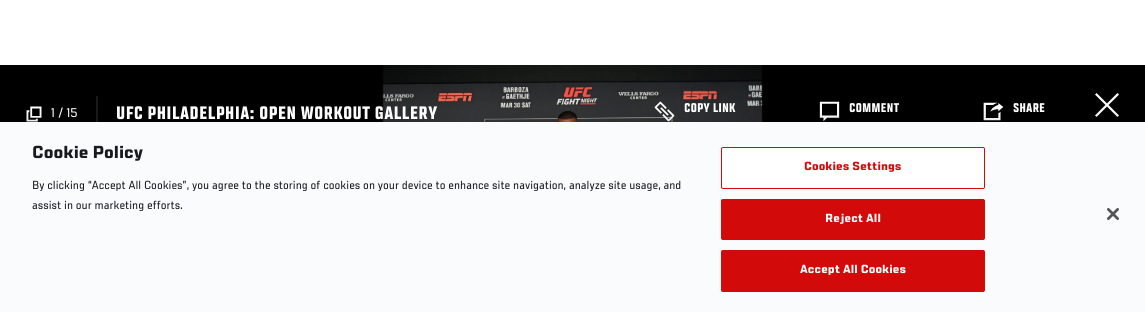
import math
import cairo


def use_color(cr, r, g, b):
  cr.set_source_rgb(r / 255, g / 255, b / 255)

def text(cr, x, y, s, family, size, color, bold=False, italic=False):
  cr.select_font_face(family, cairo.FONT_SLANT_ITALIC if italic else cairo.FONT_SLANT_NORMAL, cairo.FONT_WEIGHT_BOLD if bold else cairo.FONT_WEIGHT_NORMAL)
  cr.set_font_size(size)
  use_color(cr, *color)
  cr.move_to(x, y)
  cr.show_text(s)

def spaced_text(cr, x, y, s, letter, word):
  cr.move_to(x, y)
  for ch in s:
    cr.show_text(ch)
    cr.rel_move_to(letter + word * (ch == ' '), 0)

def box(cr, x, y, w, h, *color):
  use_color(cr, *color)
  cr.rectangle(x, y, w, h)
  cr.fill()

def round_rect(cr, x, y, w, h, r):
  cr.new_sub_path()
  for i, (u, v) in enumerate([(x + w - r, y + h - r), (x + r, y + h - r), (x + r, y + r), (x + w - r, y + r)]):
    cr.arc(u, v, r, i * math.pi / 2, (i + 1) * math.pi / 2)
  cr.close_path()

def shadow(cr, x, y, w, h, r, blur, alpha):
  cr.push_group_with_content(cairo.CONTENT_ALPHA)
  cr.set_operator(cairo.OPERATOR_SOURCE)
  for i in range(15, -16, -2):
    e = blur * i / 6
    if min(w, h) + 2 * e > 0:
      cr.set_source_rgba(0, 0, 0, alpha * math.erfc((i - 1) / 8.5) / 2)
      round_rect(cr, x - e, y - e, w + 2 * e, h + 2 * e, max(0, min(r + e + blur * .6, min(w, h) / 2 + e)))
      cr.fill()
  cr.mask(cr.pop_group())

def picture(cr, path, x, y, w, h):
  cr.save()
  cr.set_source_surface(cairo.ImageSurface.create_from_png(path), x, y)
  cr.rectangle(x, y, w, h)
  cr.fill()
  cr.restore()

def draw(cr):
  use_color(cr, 255, 255, 255)
  cr.paint()
  box(cr, 0, 65, 1145, 57, 0, 0, 0)
  picture(cr, "img_01.png", 382, 65, 381, 57)
  picture(cr, "img_02.png", 26, 106, 16, 16)
  box(cr, 96, 96, 2, 26, 26, 26, 26)
  picture(cr, "img_03.png", 654, 101, 21, 21)
  picture(cr, "img_04.png", 819, 101, 21, 21)
  picture(cr, "img_05.png", 983, 102, 21, 19)
  picture(cr, "img_06.png", 1095, 93, 24, 24)
  use_color(cr, 0, 0, 0)
  shadow(cr, 0, 122, 1145, 190, 0, 9, 0.2)
  box(cr, 0, 122, 1145, 190, 250, 251, 253)
  use_color(cr, 255, 255, 255)
  round_rect(cr, 721.5, 147.5, 263, 41, 1.5)
  cr.fill_preserve()
  use_color(cr, 210, 10, 10)
  cr.set_line_width(1)
  cr.stroke()
  round_rect(cr, 721.5, 199.5, 263, 40, 1.5)
  cr.fill_preserve()
  cr.stroke()
  round_rect(cr, 721.5, 250.5, 263, 41, 1.5)
  cr.fill_preserve()
  cr.stroke()
  picture(cr, "img_07.png", 1107, 208, 12, 12)
  text(cr, 51, 117, "1 / 15", "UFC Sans", 14, (255, 255, 255))
  cr.select_font_face("UFC Sans", cairo.FONT_SLANT_NORMAL, cairo.FONT_WEIGHT_BOLD)
  cr.set_font_size(20)
  spaced_text(cr, 116, 119, "UFC PHILADELPHIA: OPEN WORKOUT GALLERY", 0.2, 0)
  text(cr, 684, 112, "COPY LINK", "UFC Sans", 14, (255, 255, 255), bold=True)
  text(cr, 849, 112, "COMMENT", "UFC Sans", 14, (255, 255, 255), bold=True)
  text(cr, 1013, 112, "SHARE", "UFC Sans", 14, (255, 255, 255), bold=True)
  text(cr, 32, 158, "Cookie Policy", "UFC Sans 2", 19.25, (25, 25, 30), bold=True)
  text(cr, 32, 189, "By clicking “Accept All Cookies”, you agree to the storing of cookies on your device to enhance site navigation, analyze site usage, and", "UFC Sans", 13, (25, 25, 30))
  text(cr, 32, 209, "assist in our marketing efforts.", "UFC Sans", 13, (25, 25, 30))
  cr.select_font_face("UFC Sans 2", cairo.FONT_SLANT_NORMAL, cairo.FONT_WEIGHT_BOLD)
  use_color(cr, 210, 10, 10)
  spaced_text(cr, 804, 170, "Cookies Settings", 0.1, 0)
  use_color(cr, 255, 255, 255)
  spaced_text(cr, 825, 222, "Reject All", 0.1, 0)
  spaced_text(cr, 800, 273, "Accept All Cookies", 0.1, 0)


surface = cairo.ImageSurface(cairo.FORMAT_RGB24, 1145, 312)
cr = cairo.Context(surface)
options = cairo.FontOptions()
options.set_hint_metrics(cairo.HINT_METRICS_OFF)
options.set_hint_style(cairo.HINT_STYLE_NONE)
cr.set_font_options(options)
cr.set_miter_limit(4)
draw(cr)
surface.write_to_png("out.png")
